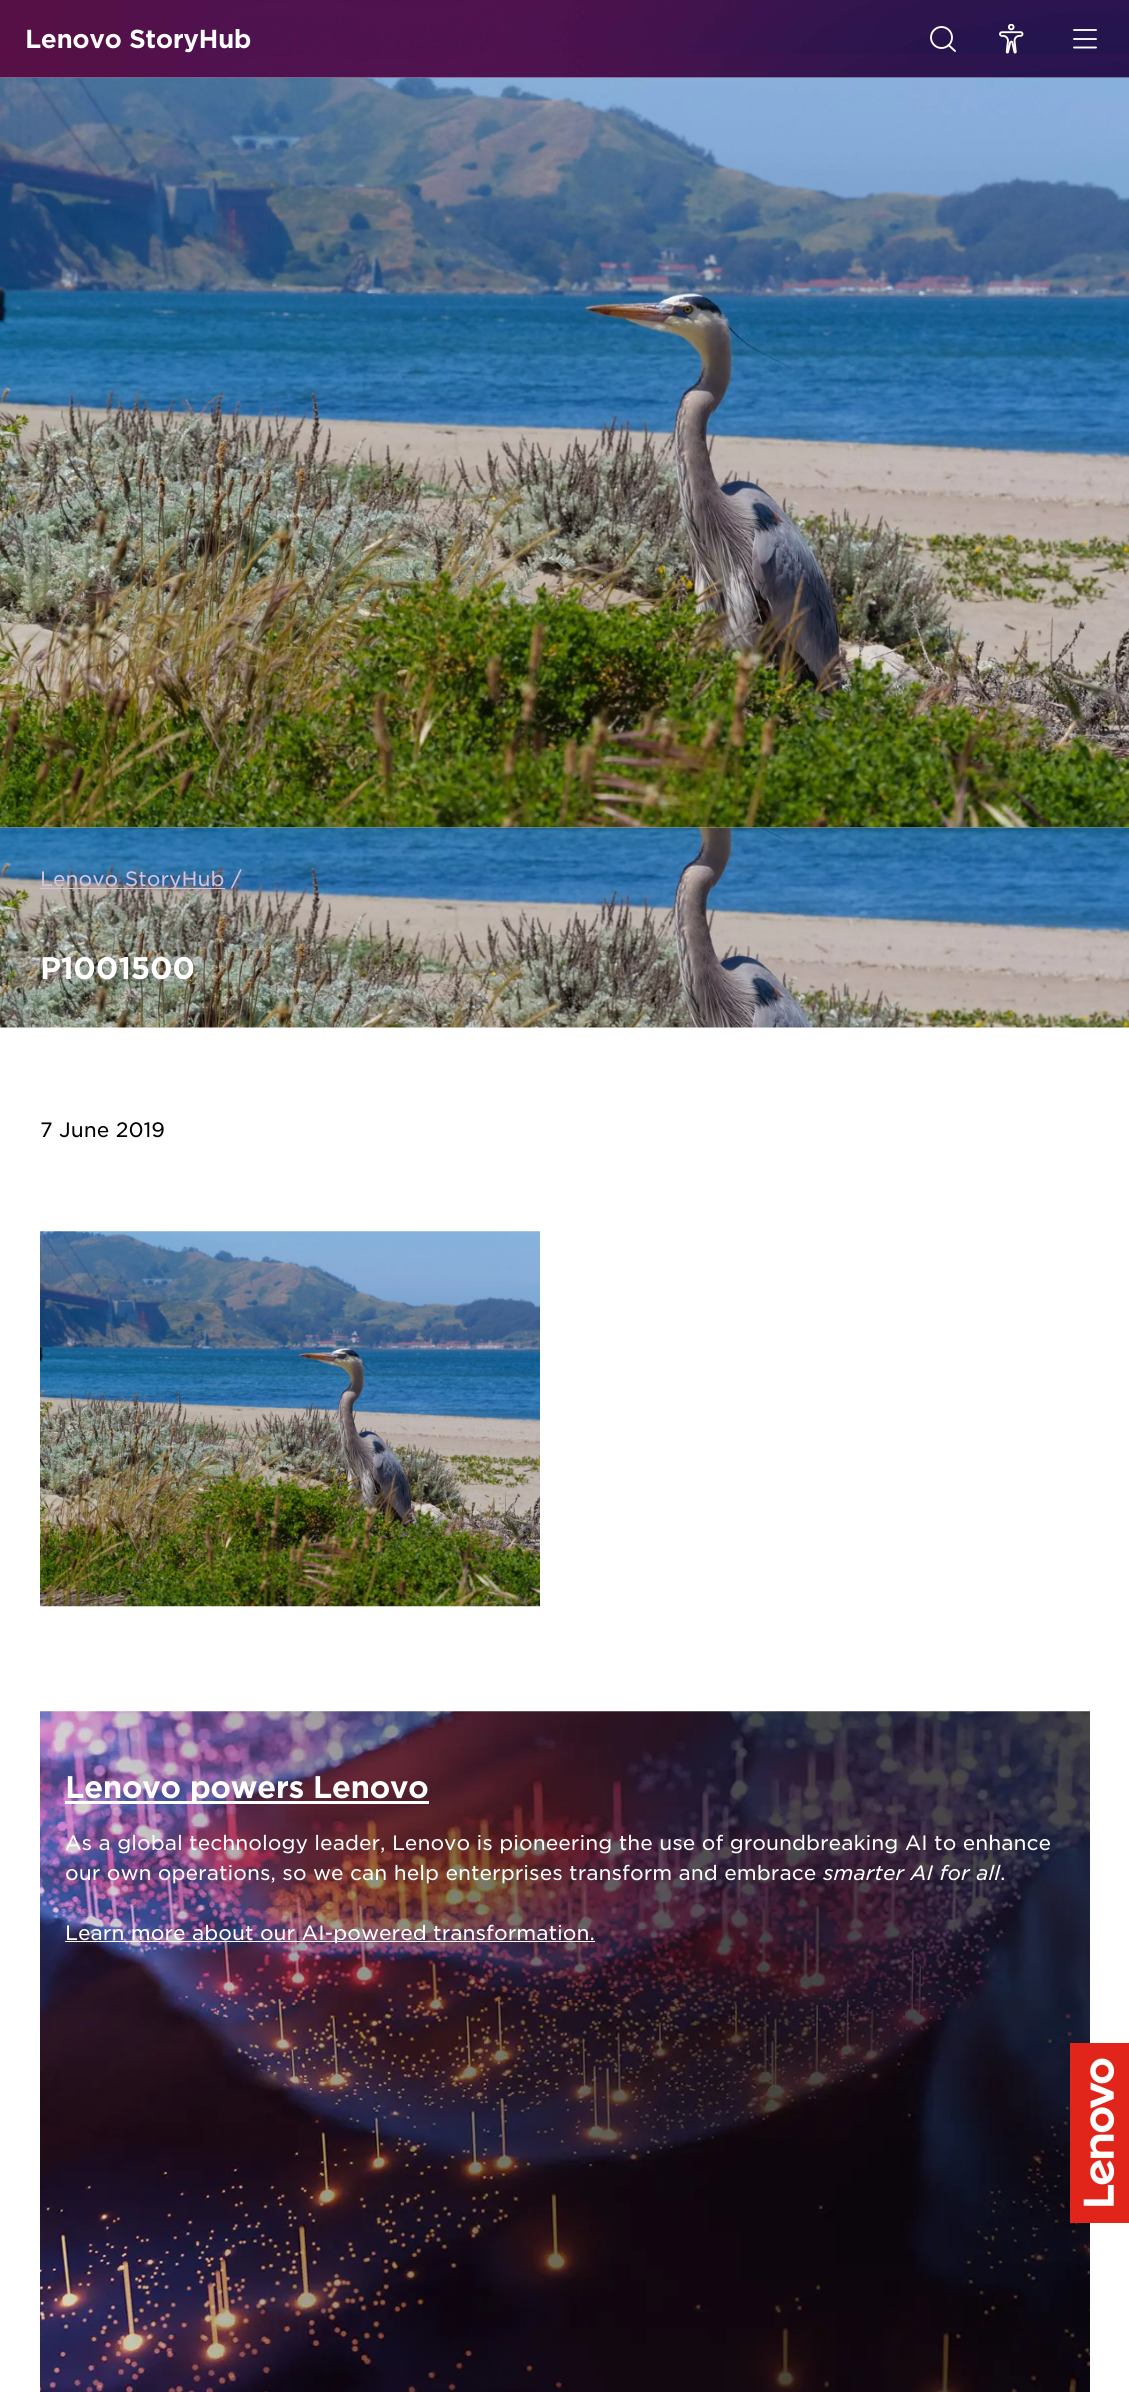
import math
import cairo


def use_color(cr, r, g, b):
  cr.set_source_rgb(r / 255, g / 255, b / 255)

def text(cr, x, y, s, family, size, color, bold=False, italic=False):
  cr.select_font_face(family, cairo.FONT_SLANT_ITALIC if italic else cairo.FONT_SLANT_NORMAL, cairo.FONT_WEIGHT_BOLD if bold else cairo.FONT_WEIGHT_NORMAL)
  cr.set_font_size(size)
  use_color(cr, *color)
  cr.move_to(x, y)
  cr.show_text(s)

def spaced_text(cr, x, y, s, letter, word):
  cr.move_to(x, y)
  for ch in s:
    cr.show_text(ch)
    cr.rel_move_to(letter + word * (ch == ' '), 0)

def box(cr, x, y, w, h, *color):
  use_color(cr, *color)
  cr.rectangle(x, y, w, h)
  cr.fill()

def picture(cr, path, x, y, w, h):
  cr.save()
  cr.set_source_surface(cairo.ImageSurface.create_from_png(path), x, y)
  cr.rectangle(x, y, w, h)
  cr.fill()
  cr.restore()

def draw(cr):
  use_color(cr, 255, 255, 255)
  cr.paint()
  picture(cr, "img_03.png", 0, 77, 1129, 751)
  picture(cr, "img_01.png", 0, 0, 1129, 78)
  cr.arc(941.5, 37.5, 10.5, 0, 2 * math.pi)
  use_color(cr, 255, 255, 255)
  cr.set_line_width(1.9)
  cr.stroke()
  cr.new_path()
  cr.move_to(955, 51)
  cr.line_to(948.5, 45)
  cr.set_line_cap(cairo.LINE_CAP_ROUND)
  cr.set_line_join(cairo.LINE_JOIN_ROUND)
  cr.stroke()
  picture(cr, "img_02.png", 999, 24, 25, 30)
  cr.new_path()
  cr.move_to(1074, 30)
  cr.line_to(1096, 30)
  cr.move_to(1074, 39)
  cr.line_to(1096, 39)
  cr.move_to(1074, 47.5)
  cr.line_to(1096, 47.5)
  cr.set_line_join(cairo.LINE_JOIN_MITER)
  cr.stroke()
  picture(cr, "img_04.png", 0, 827, 1129, 201)
  box(cr, 40, 888, 185, 1, 217, 193, 216)
  picture(cr, "img_05.png", 40, 1231, 500, 376)
  picture(cr, "img_06.png", 40, 1711, 1050, 681)
  box(cr, 65, 1801, 364, 3, 255, 255, 255)
  box(cr, 65, 1941, 530, 1, 255, 255, 255)
  box(cr, 1070, 2043, 59, 180, 225, 37, 27)
  picture(cr, "img_07.png", 1083, 2058, 32, 148)
  cr.select_font_face("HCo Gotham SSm", cairo.FONT_SLANT_NORMAL, cairo.FONT_WEIGHT_BOLD)
  cr.set_font_size(25)
  use_color(cr, 255, 255, 255)
  spaced_text(cr, 25, 48, "Lenovo StoryHub", -0.5, 0)
  text(cr, 40, 886, "Lenovo StoryHub", "HCo Gotham SSm", 20, (217, 193, 216))
  text(cr, 231, 886, "/", "HCo Gotham SSm", 20, (217, 193, 216))
  cr.select_font_face("HCo Gotham SSm", cairo.FONT_SLANT_NORMAL, cairo.FONT_WEIGHT_BOLD)
  cr.set_font_size(30)
  use_color(cr, 255, 255, 255)
  spaced_text(cr, 40, 979, "P1001500", -0.6, 0)
  text(cr, 40, 1137, "7 June 2019", "HCo Gotham SSm", 20, (0, 0, 0))
  cr.select_font_face("HCo Gotham SSm", cairo.FONT_SLANT_NORMAL, cairo.FONT_WEIGHT_BOLD)
  cr.set_font_size(30)
  use_color(cr, 255, 255, 255)
  spaced_text(cr, 65, 1798, "Lenovo powers Lenovo", -0.6, 0)
  text(cr, 65, 1850, "As a global technology leader, Lenovo is pioneering the use of groundbreaking AI to enhance", "HCo Gotham SSm", 20, (255, 255, 255))
  text(cr, 65, 1880, "our own operations, so we can help enterprises transform and embrace", "HCo Gotham SSm", 20, (255, 255, 255))
  text(cr, 823, 1880, "smarter AI for all", "HCo Gotham SSm", 20, (255, 255, 255), italic=True)
  text(cr, 1000, 1880, ".", "HCo Gotham SSm", 20, (255, 255, 255))
  text(cr, 65, 1940, "Learn more about our AI-powered transformation.", "HCo Gotham SSm", 20, (255, 255, 255))


surface = cairo.ImageSurface(cairo.FORMAT_RGB24, 1129, 2392)
cr = cairo.Context(surface)
options = cairo.FontOptions()
options.set_hint_metrics(cairo.HINT_METRICS_OFF)
options.set_hint_style(cairo.HINT_STYLE_NONE)
cr.set_font_options(options)
cr.set_miter_limit(4)
draw(cr)
surface.write_to_png("out.png")
